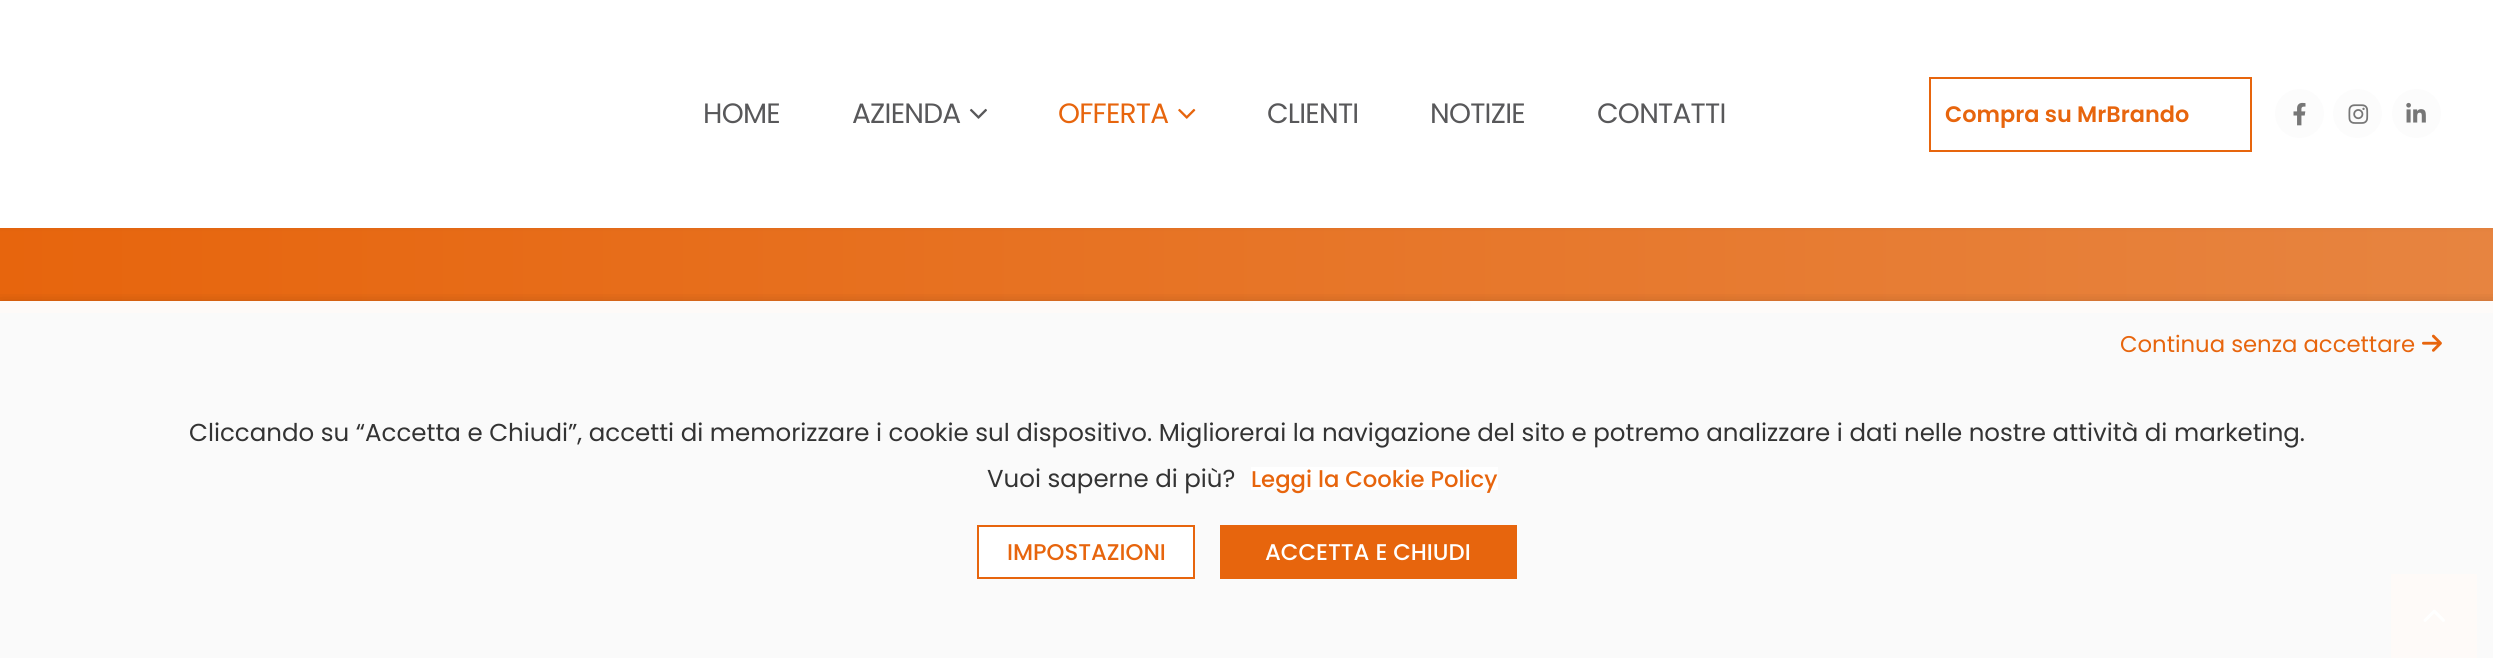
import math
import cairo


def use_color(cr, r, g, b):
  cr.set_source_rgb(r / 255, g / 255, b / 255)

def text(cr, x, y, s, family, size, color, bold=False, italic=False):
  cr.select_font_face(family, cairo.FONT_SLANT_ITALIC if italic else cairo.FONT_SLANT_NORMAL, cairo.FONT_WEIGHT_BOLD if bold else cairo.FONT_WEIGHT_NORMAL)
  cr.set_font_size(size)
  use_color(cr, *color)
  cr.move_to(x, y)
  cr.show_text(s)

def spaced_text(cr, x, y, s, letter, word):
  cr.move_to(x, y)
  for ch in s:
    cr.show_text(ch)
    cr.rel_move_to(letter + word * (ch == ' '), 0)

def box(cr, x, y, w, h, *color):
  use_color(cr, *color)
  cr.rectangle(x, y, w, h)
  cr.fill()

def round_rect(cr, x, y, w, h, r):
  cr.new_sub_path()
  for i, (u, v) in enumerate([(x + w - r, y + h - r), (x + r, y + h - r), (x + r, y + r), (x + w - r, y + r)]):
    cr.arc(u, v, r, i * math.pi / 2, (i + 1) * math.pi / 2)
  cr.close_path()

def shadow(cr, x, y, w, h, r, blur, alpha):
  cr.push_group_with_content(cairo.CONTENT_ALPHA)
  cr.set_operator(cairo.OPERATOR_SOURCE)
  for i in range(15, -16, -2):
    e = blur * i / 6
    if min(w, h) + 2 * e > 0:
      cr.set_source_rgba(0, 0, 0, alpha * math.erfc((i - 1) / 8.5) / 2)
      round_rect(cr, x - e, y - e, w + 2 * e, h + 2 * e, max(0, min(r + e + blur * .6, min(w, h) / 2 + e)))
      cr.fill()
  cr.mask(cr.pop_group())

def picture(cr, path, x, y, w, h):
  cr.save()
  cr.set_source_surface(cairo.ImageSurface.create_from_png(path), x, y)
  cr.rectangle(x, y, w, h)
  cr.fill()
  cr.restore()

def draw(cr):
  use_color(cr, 250, 250, 250)
  cr.paint()
  gradient = cairo.LinearGradient(0, 92, 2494, 92)
  gradient.add_color_stop_rgba(0, 0.906, 0.396, 0.051, 1)
  gradient.add_color_stop_rgba(1, 0.906, 0.518, 0.251, 1)
  cr.set_source(gradient)
  cr.rectangle(0, 228, 2493, 73)
  cr.fill()
  use_color(cr, 0, 0, 0)
  shadow(cr, 0, 0, 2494, 228, 0, 2.5, 0.06)
  box(cr, 0, 0, 2493, 228, 255, 255, 255)
  picture(cr, "img_01.png", 969, 108, 18, 11)
  picture(cr, "img_02.png", 1178, 108, 18, 11)
  cr.rectangle(1930, 78, 321, 73)
  use_color(cr, 231, 101, 13)
  cr.stroke()
  use_color(cr, 252, 252, 252)
  cr.arc(2299.5, 113.5, 24.5, 0, 2 * math.pi)
  cr.fill()
  picture(cr, "img_03.png", 2293, 102, 13, 24)
  cr.arc(2357.5, 113.5, 24.5, 0, 2 * math.pi)
  cr.fill()
  picture(cr, "img_04.png", 2348, 104, 21, 20)
  cr.arc(2416.5, 113.5, 24.5, 0, 2 * math.pi)
  cr.fill()
  picture(cr, "img_05.png", 2406, 102, 20, 21)
  gradient = cairo.LinearGradient(0, 92, 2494, 92)
  gradient.add_color_stop_rgba(0, 0.996, 0.98, 0.973, 1)
  gradient.add_color_stop_rgba(1, 0.996, 0.984, 0.976, 1)
  cr.set_source(gradient)
  cr.rectangle(0, 301, 2493, 12)
  cr.fill()
  box(cr, 2391, 574, 86, 84, 254, 250, 248)
  picture(cr, "img_07.png", 2423, 609, 22, 13)
  cr.save()
  cr.rectangle(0, 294, 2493, 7)
  cr.clip()
  use_color(cr, 0, 0, 0)
  shadow(cr, 0, 310, 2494, 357, 0, 9, 0.5)
  cr.restore()
  picture(cr, "img_06.png", 2422, 334, 20, 18)
  box(cr, 1251, 467, 247, 23, 255, 255, 255)
  cr.rectangle(978, 526, 216, 52)
  cr.fill_preserve()
  use_color(cr, 231, 101, 13)
  cr.stroke()
  box(cr, 1220, 525, 297, 54, 231, 101, 13)
  cr.select_font_face("Poppins")
  cr.set_font_size(28)
  use_color(cr, 88, 88, 90)
  spaced_text(cr, 703, 123, "HOME", -0.75, 0)
  spaced_text(cr, 852, 123, "AZIENDA", -0.75, 0)
  use_color(cr, 231, 101, 13)
  spaced_text(cr, 1058, 123, "OFFERTA", -0.75, 0)
  use_color(cr, 88, 88, 90)
  spaced_text(cr, 1267, 123, "CLIENTI", -0.75, 0)
  spaced_text(cr, 1430, 123, "NOTIZIE", -0.75, 0)
  spaced_text(cr, 1597, 123, "CONTATTI", -0.75, 0)
  text(cr, 1945, 122, "Compra su MrBrando", "Poppins SemiBold", 22.4, (231, 101, 13))
  text(cr, 2120, 352, "Continua senza accettare", "Poppins", 22.75, (231, 101, 13))
  text(cr, 189, 441, "Cliccando su “Accetta e Chiudi”, accetti di memorizzare i cookie sul dispositivo. Migliorerai la navigazione del sito e potremo analizzare i dati nelle nostre attività di marketing.", "Poppins", 24.5, (51, 51, 51))
  text(cr, 987, 487, "Vuoi saperne di più?", "Poppins", 24.5, (51, 51, 51))
  text(cr, 1251, 487, "Leggi la Cookie Policy", "Poppins Medium", 22.75, (231, 101, 13))
  text(cr, 1007, 560, "IMPOSTAZIONI", "Poppins Medium", 22.75, (231, 101, 13))
  text(cr, 1265, 560, "ACCETTA E CHIUDI", "Poppins Medium", 22.75, (255, 255, 255))


surface = cairo.ImageSurface(cairo.FORMAT_RGB24, 2493, 658)
cr = cairo.Context(surface)
options = cairo.FontOptions()
options.set_hint_metrics(cairo.HINT_METRICS_OFF)
options.set_hint_style(cairo.HINT_STYLE_NONE)
cr.set_font_options(options)
cr.set_miter_limit(4)
draw(cr)
surface.write_to_png("out.png")
